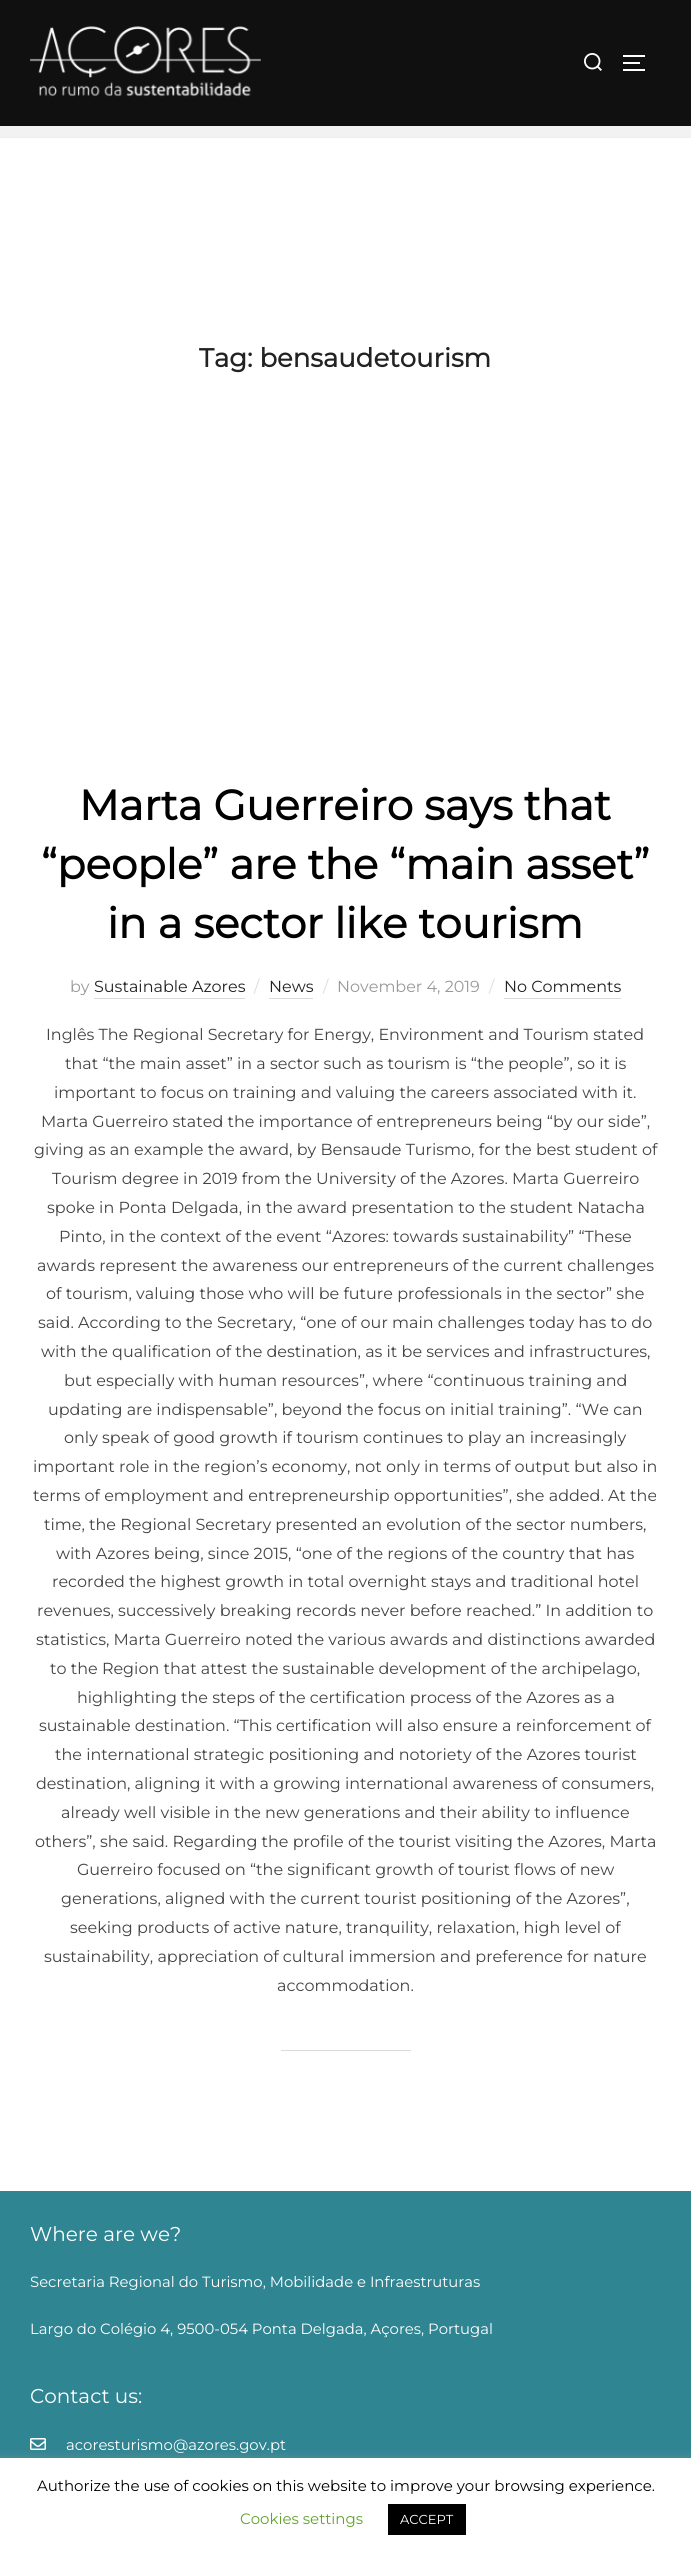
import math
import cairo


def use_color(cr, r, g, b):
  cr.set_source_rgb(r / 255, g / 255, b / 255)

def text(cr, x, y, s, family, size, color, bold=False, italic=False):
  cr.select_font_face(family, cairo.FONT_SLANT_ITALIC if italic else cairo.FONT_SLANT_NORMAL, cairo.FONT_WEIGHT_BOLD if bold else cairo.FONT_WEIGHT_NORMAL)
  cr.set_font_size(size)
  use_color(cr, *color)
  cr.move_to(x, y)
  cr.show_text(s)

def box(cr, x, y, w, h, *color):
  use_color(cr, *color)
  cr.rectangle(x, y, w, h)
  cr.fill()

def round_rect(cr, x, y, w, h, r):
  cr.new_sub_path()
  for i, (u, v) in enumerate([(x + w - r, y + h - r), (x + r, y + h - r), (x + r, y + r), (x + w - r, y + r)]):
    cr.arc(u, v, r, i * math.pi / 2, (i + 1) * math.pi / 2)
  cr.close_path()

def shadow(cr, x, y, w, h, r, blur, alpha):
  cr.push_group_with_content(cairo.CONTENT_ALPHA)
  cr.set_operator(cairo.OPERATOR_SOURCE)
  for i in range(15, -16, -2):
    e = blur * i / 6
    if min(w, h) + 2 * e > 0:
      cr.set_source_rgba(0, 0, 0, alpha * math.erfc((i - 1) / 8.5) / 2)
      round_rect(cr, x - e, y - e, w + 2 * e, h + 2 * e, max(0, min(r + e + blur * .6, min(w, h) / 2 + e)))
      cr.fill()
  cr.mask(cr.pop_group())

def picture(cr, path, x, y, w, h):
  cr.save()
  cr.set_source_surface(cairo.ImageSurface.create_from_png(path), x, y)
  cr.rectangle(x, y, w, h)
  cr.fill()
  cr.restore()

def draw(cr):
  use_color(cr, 255, 255, 255)
  cr.paint()
  box(cr, 0, 126, 691, 11, 242, 242, 242)
  box(cr, 0, 137, 691, 1, 238, 238, 238)
  box(cr, 0, 0, 691, 126, 16, 16, 16)
  picture(cr, "img_01.png", 30, 26, 231, 71)
  picture(cr, "img_02.png", 584, 53, 18, 18)
  box(cr, 623, 55, 22, 2, 255, 255, 255)
  box(cr, 623, 62, 17, 2, 255, 255, 255)
  box(cr, 623, 69, 22, 2, 255, 255, 255)
  box(cr, 94, 998, 151, 1, 219, 219, 219)
  box(cr, 269, 998, 44, 1, 219, 219, 219)
  box(cr, 504, 998, 117, 1, 219, 219, 219)
  box(cr, 281, 2050, 130, 1, 219, 219, 219)
  box(cr, 0, 2191, 691, 267, 47, 133, 146)
  picture(cr, "img_03.png", 30, 2438, 16, 12)
  use_color(cr, 172, 171, 171)
  shadow(cr, 0, 2457, 691, 94, 0, 5, 0.3)
  box(cr, 0, 2458, 691, 94, 255, 255, 255)
  box(cr, 388, 2504, 78, 31, 0, 0, 0)
  text(cr, 199, 367, "Tag: bensaudetourism", "Montserrat", 26, (34, 34, 34), bold=True)
  text(cr, 79, 820, "Marta Guerreiro says that", "Montserrat", 42, (0, 0, 0), bold=True)
  text(cr, 41, 879, "“people” are the “main asset”", "Montserrat", 42, (0, 0, 0), bold=True)
  text(cr, 107, 938, "in a sector like tourism", "Montserrat", 42, (0, 0, 0), bold=True)
  text(cr, 70, 992, "by", "Montserrat Thin", 16, (153, 153, 153))
  text(cr, 94, 992, "Sustainable Azores", "Montserrat Thin", 16, (34, 34, 34))
  text(cr, 254, 992, "/", "Montserrat Thin", 16, (219, 221, 221))
  text(cr, 269, 992, "News", "Montserrat Thin", 16, (34, 34, 34))
  text(cr, 323, 992, "/", "Montserrat Thin", 16, (219, 221, 221))
  text(cr, 337, 992, "November 4, 2019", "Montserrat Thin", 16, (153, 153, 153))
  text(cr, 489, 992, "/", "Montserrat Thin", 16, (219, 221, 221))
  text(cr, 504, 992, "No Comments", "Montserrat Thin", 16, (34, 34, 34))
  text(cr, 46, 1040, "Inglês The Regional Secretary for Energy, Environment and Tourism stated", "Montserrat Thin", 16, (68, 68, 68))
  text(cr, 65, 1069, "that “the main asset” in a sector such as tourism is “the people”, so it is", "Montserrat Thin", 16, (68, 68, 68))
  text(cr, 54, 1098, "important to focus on training and valuing the careers associated with it.", "Montserrat Thin", 16, (68, 68, 68))
  text(cr, 41, 1127, "Marta Guerreiro stated the importance of entrepreneurs being “by our side”,", "Montserrat Thin", 16, (68, 68, 68))
  text(cr, 34, 1155, "giving as an example the award, by Bensaude Turismo, for the best student of", "Montserrat Thin", 16, (68, 68, 68))
  text(cr, 52, 1184, "Tourism degree in 2019 from the University of the Azores. Marta Guerreiro", "Montserrat Thin", 16, (68, 68, 68))
  text(cr, 47, 1213, "spoke in Ponta Delgada, in the award presentation to the student Natacha", "Montserrat Thin", 16, (68, 68, 68))
  text(cr, 59, 1242, "Pinto, in the context of the event “Azores: towards sustainability” “These", "Montserrat Thin", 16, (68, 68, 68))
  text(cr, 37, 1271, "awards represent the awareness our entrepreneurs of the current challenges", "Montserrat Thin", 16, (68, 68, 68))
  text(cr, 46, 1299, "of tourism, valuing those who will be future professionals in the sector” she", "Montserrat Thin", 16, (68, 68, 68))
  text(cr, 38, 1328, "said. According to the Secretary, “one of our main challenges today has to do", "Montserrat Thin", 16, (68, 68, 68))
  text(cr, 41, 1357, "with the qualification of the destination, as it be services and infrastructures,", "Montserrat Thin", 16, (68, 68, 68))
  text(cr, 64, 1386, "but especially with human resources”, where “continuous training and", "Montserrat Thin", 16, (68, 68, 68))
  text(cr, 48, 1415, "updating are indispensable”, beyond the focus on initial training”. “We can", "Montserrat Thin", 16, (68, 68, 68))
  text(cr, 64, 1443, "only speak of good growth if tourism continues to play an increasingly", "Montserrat Thin", 16, (68, 68, 68))
  text(cr, 33, 1472, "important role in the region’s economy, not only in terms of output but also in", "Montserrat Thin", 16, (68, 68, 68))
  text(cr, 33, 1501, "terms of employment and entrepreneurship opportunities”, she added. At the", "Montserrat Thin", 16, (68, 68, 68))
  text(cr, 44, 1530, "time, the Regional Secretary presented an evolution of the sector numbers,", "Montserrat Thin", 16, (68, 68, 68))
  text(cr, 56, 1559, "with Azores being, since 2015, “one of the regions of the country that has", "Montserrat Thin", 16, (68, 68, 68))
  text(cr, 52, 1587, "recorded the highest growth in total overnight stays and traditional hotel", "Montserrat Thin", 16, (68, 68, 68))
  text(cr, 37, 1616, "revenues, successively breaking records never before reached.” In addition to", "Montserrat Thin", 16, (68, 68, 68))
  text(cr, 36, 1645, "statistics, Marta Guerreiro noted the various awards and distinctions awarded", "Montserrat Thin", 16, (68, 68, 68))
  text(cr, 50, 1674, "to the Region that attest the sustainable development of the archipelago,", "Montserrat Thin", 16, (68, 68, 68))
  text(cr, 77, 1703, "highlighting the steps of the certification process of the Azores as a", "Montserrat Thin", 16, (68, 68, 68))
  text(cr, 39, 1731, "sustainable destination. “This certification will also ensure a reinforcement of", "Montserrat Thin", 16, (68, 68, 68))
  text(cr, 55, 1760, "the international strategic positioning and notoriety of the Azores tourist", "Montserrat Thin", 16, (68, 68, 68))
  text(cr, 36, 1789, "destination, aligning it with a growing international awareness of consumers,", "Montserrat Thin", 16, (68, 68, 68))
  text(cr, 61, 1818, "already well visible in the new generations and their ability to influence", "Montserrat Thin", 16, (68, 68, 68))
  text(cr, 35, 1847, "others”, she said. Regarding the profile of the tourist visiting the Azores, Marta", "Montserrat Thin", 16, (68, 68, 68))
  text(cr, 77, 1875, "Guerreiro focused on “the significant growth of tourist flows of new", "Montserrat Thin", 16, (68, 68, 68))
  text(cr, 61, 1904, "generations, aligned with the current tourist positioning of the Azores”,", "Montserrat Thin", 16, (68, 68, 68))
  text(cr, 70, 1933, "seeking products of active nature, tranquility, relaxation, high level of", "Montserrat Thin", 16, (68, 68, 68))
  text(cr, 44, 1962, "sustainability, appreciation of cultural immersion and preference for nature", "Montserrat Thin", 16, (68, 68, 68))
  text(cr, 277, 1991, "accommodation.", "Montserrat Thin", 16, (68, 68, 68))
  text(cr, 30, 2241, "Where are we?", "Montserrat Thin", 20, (255, 255, 255))
  text(cr, 30, 2287, "Secretaria Regional do Turismo, Mobilidade e Infraestruturas", "Montserrat Thin", 14.85, (255, 255, 255))
  text(cr, 30, 2334, "Largo do Colégio 4, 9500-054 Ponta Delgada, Açores, Portugal", "Montserrat Thin", 14.85, (255, 255, 255))
  text(cr, 30, 2403, "Contact us:", "Montserrat Thin", 20, (255, 255, 255))
  text(cr, 66, 2450, "acoresturismo@azores.gov.pt", "Montserrat Thin", 14.85, (255, 255, 255))
  text(cr, 37, 2491, "Authorize the use of cookies on this website to improve your browsing experience.", "Montserrat Thin", 15, (0, 0, 0))
  text(cr, 240, 2524, "Cookies settings", "Montserrat Thin", 15, (98, 163, 41))
  text(cr, 400, 2524, "ACCEPT", "Montserrat Thin", 13, (255, 255, 255))


surface = cairo.ImageSurface(cairo.FORMAT_RGB24, 691, 2552)
cr = cairo.Context(surface)
options = cairo.FontOptions()
options.set_hint_metrics(cairo.HINT_METRICS_OFF)
options.set_hint_style(cairo.HINT_STYLE_NONE)
cr.set_font_options(options)
cr.set_miter_limit(4)
draw(cr)
surface.write_to_png("out.png")
